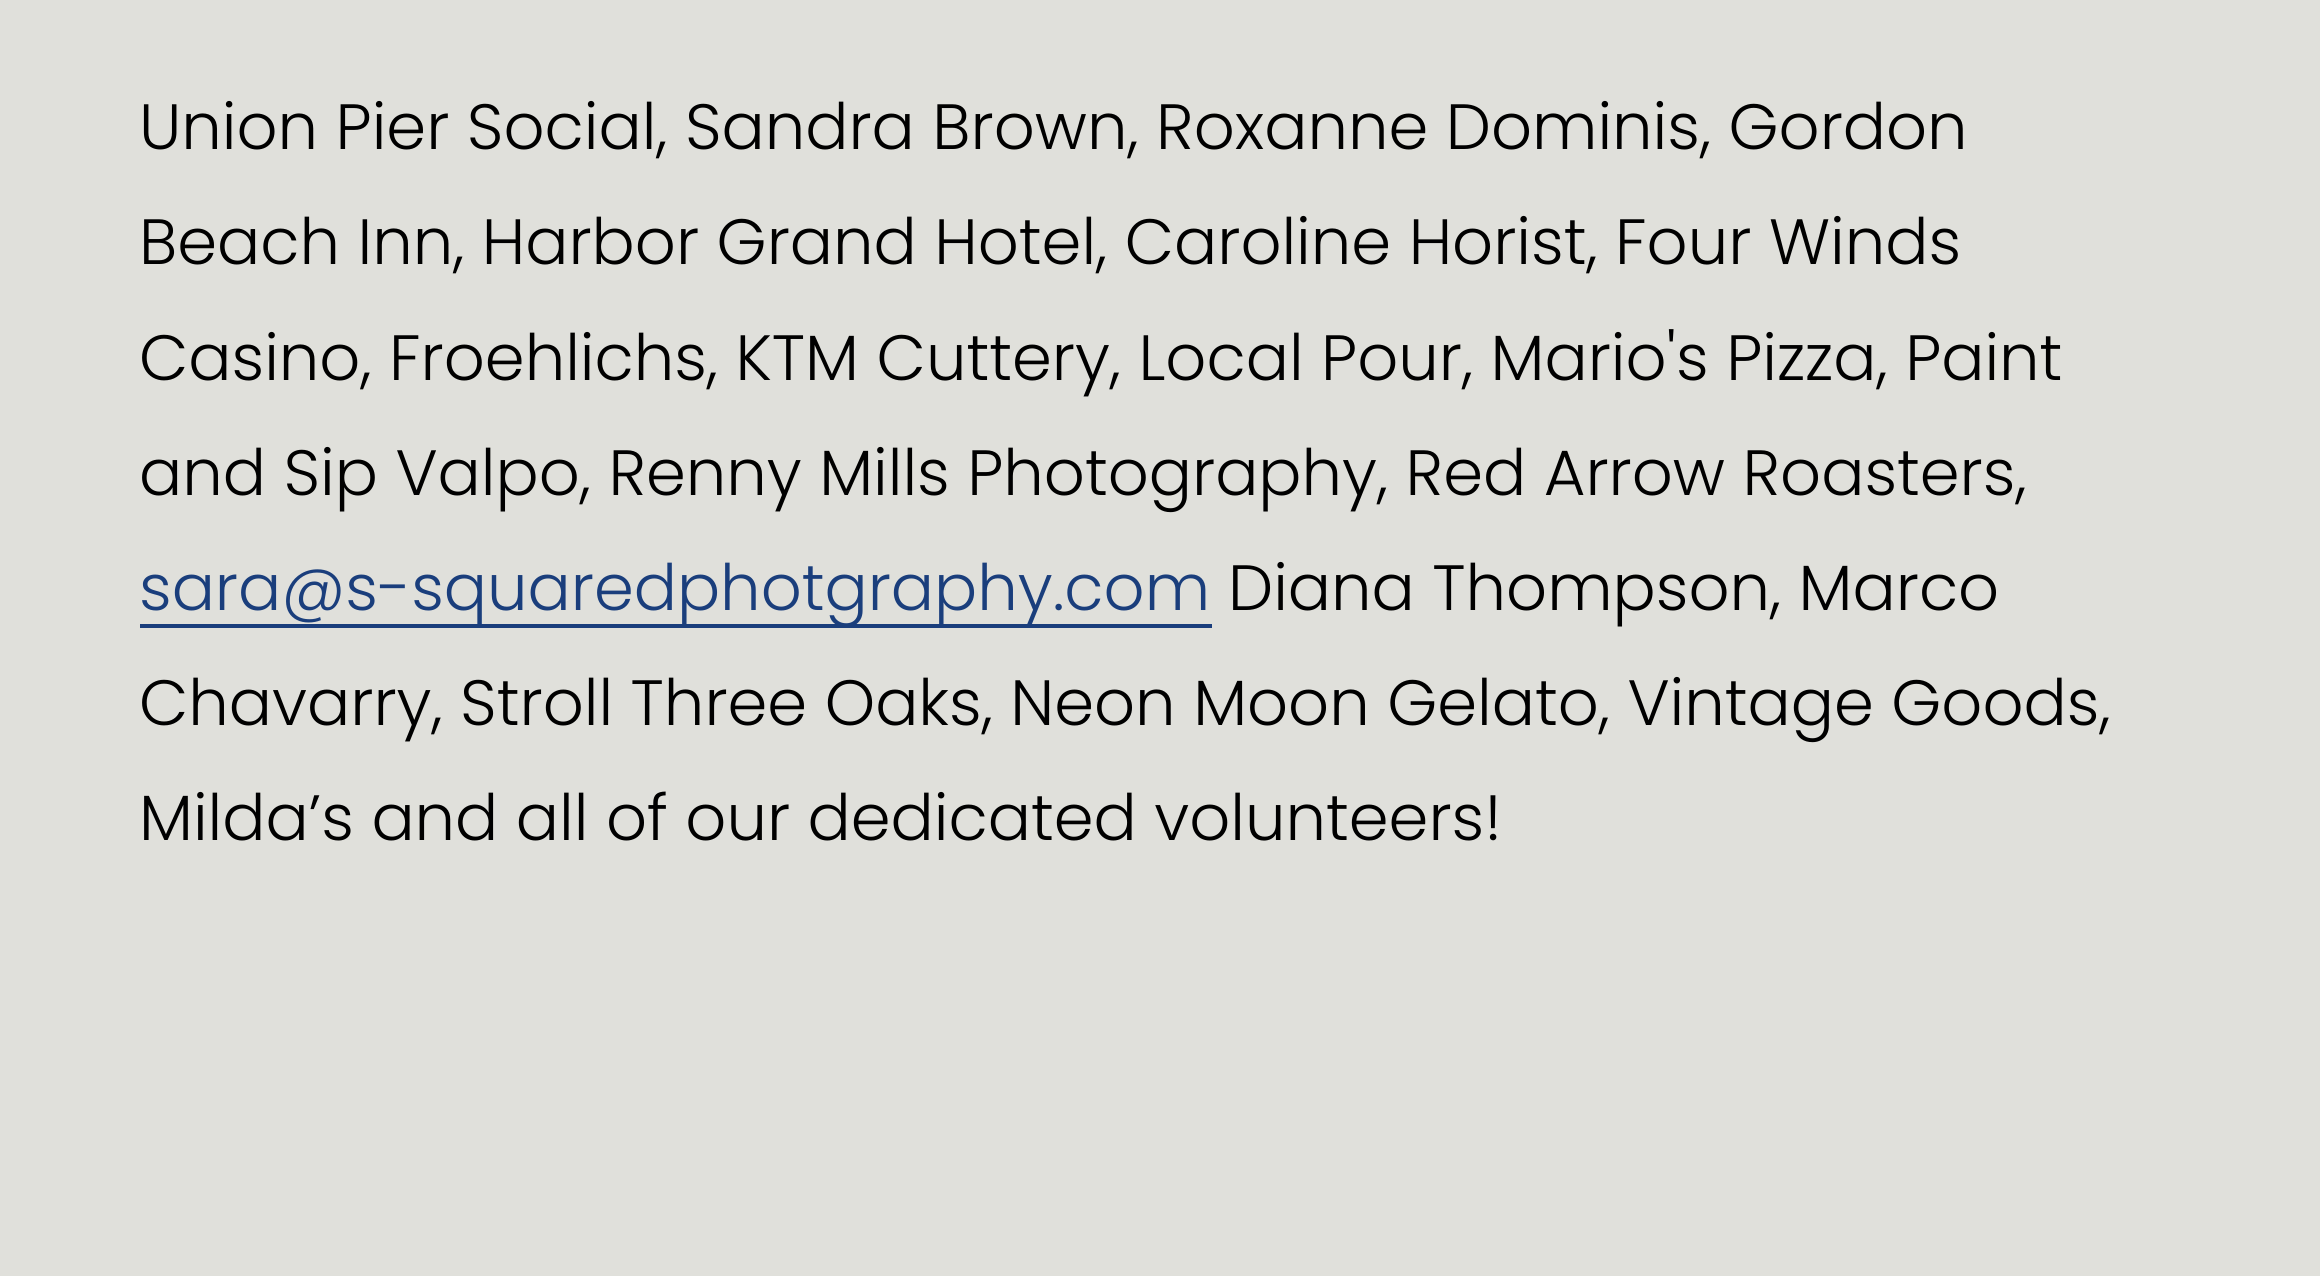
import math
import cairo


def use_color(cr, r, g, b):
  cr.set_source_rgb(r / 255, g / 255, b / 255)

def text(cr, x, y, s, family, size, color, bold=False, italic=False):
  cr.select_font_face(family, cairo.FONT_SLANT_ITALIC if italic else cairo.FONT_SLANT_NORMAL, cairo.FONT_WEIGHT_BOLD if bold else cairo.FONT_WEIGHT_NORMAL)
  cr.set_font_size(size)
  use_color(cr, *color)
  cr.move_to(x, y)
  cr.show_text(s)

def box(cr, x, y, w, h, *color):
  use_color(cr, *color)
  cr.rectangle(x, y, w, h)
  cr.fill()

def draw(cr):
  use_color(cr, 224, 224, 219)
  cr.paint()
  box(cr, 140, 624, 1072, 4, 26, 62, 124)
  text(cr, 139, 149, "Union Pier Social, Sandra Brown, Roxanne Dominis, Gordon", "Poppins Light", 64, (0, 0, 0))
  text(cr, 139, 264, "Beach Inn, Harbor Grand Hotel, Caroline Horist, Four Winds", "Poppins Light", 64, (0, 0, 0))
  text(cr, 139, 380, "Casino, Froehlichs, KTM Cuttery, Local Pour, Mario's Pizza, Paint", "Poppins Light", 64, (0, 0, 0))
  text(cr, 139, 495, "and Sip Valpo, Renny Mills Photography, Red Arrow Roasters,", "Poppins Light", 64, (0, 0, 0))
  text(cr, 139, 610, "sara@s-squaredphotgraphy.com", "Poppins Light", 64, (26, 62, 124))
  text(cr, 1228, 610, "Diana Thompson, Marco", "Poppins Light", 64, (0, 0, 0))
  text(cr, 139, 725, "Chavarry, Stroll Three Oaks, Neon Moon Gelato, Vintage Goods,", "Poppins Light", 64, (0, 0, 0))
  text(cr, 139, 840, "Milda’s and all of our dedicated volunteers!", "Poppins Light", 64, (0, 0, 0))


surface = cairo.ImageSurface(cairo.FORMAT_RGB24, 2320, 1276)
cr = cairo.Context(surface)
options = cairo.FontOptions()
options.set_hint_metrics(cairo.HINT_METRICS_OFF)
options.set_hint_style(cairo.HINT_STYLE_NONE)
cr.set_font_options(options)
cr.set_miter_limit(4)
draw(cr)
surface.write_to_png("out.png")
